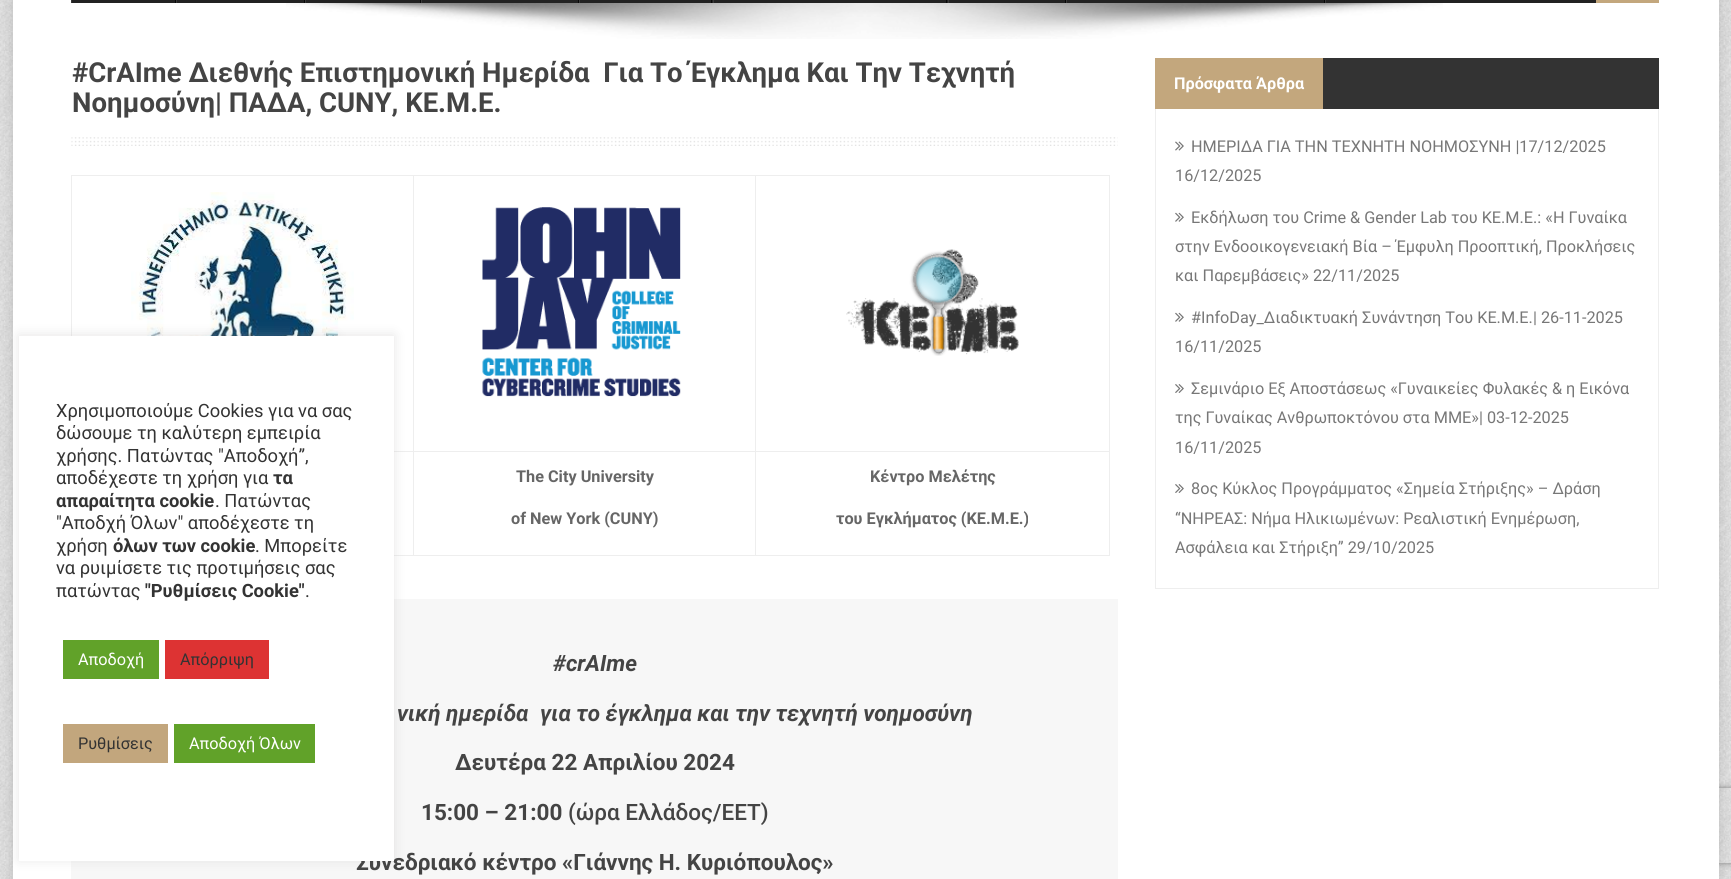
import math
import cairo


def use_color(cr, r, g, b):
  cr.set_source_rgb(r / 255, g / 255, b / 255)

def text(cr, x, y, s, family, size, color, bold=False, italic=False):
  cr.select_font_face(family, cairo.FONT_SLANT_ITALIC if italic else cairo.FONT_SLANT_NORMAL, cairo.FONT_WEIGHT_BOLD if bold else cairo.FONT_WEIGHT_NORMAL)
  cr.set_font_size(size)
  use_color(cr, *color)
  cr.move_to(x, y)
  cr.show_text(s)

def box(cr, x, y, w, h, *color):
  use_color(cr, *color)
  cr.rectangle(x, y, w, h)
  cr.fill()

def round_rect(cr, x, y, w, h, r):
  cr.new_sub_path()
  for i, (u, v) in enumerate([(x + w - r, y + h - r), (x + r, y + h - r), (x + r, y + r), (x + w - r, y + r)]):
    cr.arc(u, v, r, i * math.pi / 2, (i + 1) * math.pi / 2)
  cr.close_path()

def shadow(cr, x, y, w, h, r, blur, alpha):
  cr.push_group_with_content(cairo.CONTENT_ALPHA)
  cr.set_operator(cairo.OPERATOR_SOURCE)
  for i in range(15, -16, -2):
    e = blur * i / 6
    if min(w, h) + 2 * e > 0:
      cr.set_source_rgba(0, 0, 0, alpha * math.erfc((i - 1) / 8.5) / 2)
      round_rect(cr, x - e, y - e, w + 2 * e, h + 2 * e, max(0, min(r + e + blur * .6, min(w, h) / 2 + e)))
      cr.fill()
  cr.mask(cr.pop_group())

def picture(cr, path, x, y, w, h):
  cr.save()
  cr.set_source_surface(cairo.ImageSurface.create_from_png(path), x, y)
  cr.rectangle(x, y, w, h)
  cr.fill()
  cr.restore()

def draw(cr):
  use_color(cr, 255, 255, 255)
  cr.paint()
  picture(cr, "img_01.png", 0, 0, 1731, 879)
  use_color(cr, 0, 0, 0)
  shadow(cr, 13, -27, 1706, 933, 0, 9, 0.15)
  cr.save()
  cr.set_fill_rule(cairo.FILL_RULE_EVEN_ODD)
  cr.new_path()
  cr.move_to(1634, 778)
  cr.line_to(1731, 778)
  cr.line_to(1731, 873)
  cr.line_to(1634, 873)
  cr.close_path()
  cr.move_to(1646.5, 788)
  cr.line_to(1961.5, 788)
  cr.curve_to(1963, 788, 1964, 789, 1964, 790.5)
  cr.line_to(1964, 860.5)
  cr.curve_to(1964, 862, 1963, 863, 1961.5, 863)
  cr.line_to(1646.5, 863)
  cr.curve_to(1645, 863, 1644, 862, 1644, 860.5)
  cr.line_to(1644, 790.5)
  cr.curve_to(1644, 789, 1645, 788, 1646.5, 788)
  cr.close_path()
  cr.clip()
  use_color(cr, 128, 128, 128)
  shadow(cr, 1644, 788, 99, 75, 2.5, 3, 1)
  cr.restore()
  box(cr, 13, 0, 1706, 879, 255, 255, 255)
  box(cr, 71, 0, 1525, 3, 34, 34, 34)
  box(cr, 175, 0, 1, 3, 7, 7, 7)
  box(cr, 71, 0, 1, 3, 56, 56, 56)
  box(cr, 304, 0, 1, 3, 7, 7, 7)
  box(cr, 176, 0, 1, 3, 56, 56, 56)
  box(cr, 420, 0, 1, 3, 7, 7, 7)
  box(cr, 305, 0, 1, 3, 56, 56, 56)
  box(cr, 578, 0, 1, 3, 7, 7, 7)
  box(cr, 421, 0, 1, 3, 56, 56, 56)
  box(cr, 711, 0, 1, 3, 7, 7, 7)
  box(cr, 579, 0, 1, 3, 56, 56, 56)
  box(cr, 946, 0, 1, 3, 7, 7, 7)
  box(cr, 713, 0, 1, 3, 56, 56, 56)
  box(cr, 1065, 0, 1, 3, 7, 7, 7)
  box(cr, 948, 0, 1, 3, 56, 56, 56)
  box(cr, 1324, 0, 1, 3, 7, 7, 7)
  box(cr, 1066, 0, 1, 3, 56, 56, 56)
  box(cr, 1325, 0, 1, 3, 56, 56, 56)
  box(cr, 1596, 0, 63, 3, 195, 167, 125)
  picture(cr, "img_02.png", 286, 3, 1157, 36)
  picture(cr, "img_03.png", 71, 137, 1047, 9)
  box(cr, 755, 175, 355, 1, 238, 238, 238)
  box(cr, 755, 451, 355, 1, 238, 238, 238)
  box(cr, 1109, 451, 1, 105, 238, 238, 238)
  box(cr, 755, 555, 355, 1, 238, 238, 238)
  box(cr, 755, 451, 1, 105, 238, 238, 238)
  box(cr, 413, 451, 343, 1, 238, 238, 238)
  box(cr, 755, 175, 1, 278, 238, 238, 238)
  box(cr, 413, 175, 343, 1, 238, 238, 238)
  box(cr, 413, 555, 343, 1, 238, 238, 238)
  box(cr, 413, 451, 1, 105, 238, 238, 238)
  box(cr, 394, 451, 20, 1, 238, 238, 238)
  box(cr, 413, 175, 1, 278, 238, 238, 238)
  box(cr, 71, 175, 343, 1, 238, 238, 238)
  box(cr, 71, 175, 1, 161, 238, 238, 238)
  picture(cr, "img_04.png", 131, 192, 223, 144)
  picture(cr, "img_05.png", 482, 207, 199, 190)
  box(cr, 1109, 175, 1, 278, 238, 238, 238)
  picture(cr, "img_06.png", 846, 249, 173, 107)
  box(cr, 394, 555, 20, 1, 238, 238, 238)
  box(cr, 71, 599, 1047, 280, 247, 247, 247)
  cr.rectangle(1155.5, 58.5, 503, 530)
  use_color(cr, 238, 238, 238)
  cr.set_line_width(1)
  cr.stroke()
  box(cr, 1323, 58, 336, 51, 51, 51, 51)
  box(cr, 1155, 58, 168, 51, 195, 167, 125)
  picture(cr, "img_07.png", 1175, 141, 9, 10)
  picture(cr, "img_08.png", 1175, 212, 9, 10)
  picture(cr, "img_08.png", 1175, 312, 9, 10)
  picture(cr, "img_09.png", 1175, 384, 9, 9)
  picture(cr, "img_09.png", 1175, 484, 9, 9)
  use_color(cr, 172, 171, 171)
  shadow(cr, 19, 335, 375, 525, 0, 6, 0.3)
  text(cr, 72, 82, "#CrAIme Διεθνής Επιστημονική Ημερίδα  Για Το Έγκλημα Και Την Τεχνητή", "Roboto", 27.5, (68, 68, 68), bold=True)
  text(cr, 72, 112, "Νοημοσύνη| ΠΑΔΑ, CUNY, ΚΕ.Μ.Ε.", "Roboto", 27.5, (68, 68, 68), bold=True)
  text(cr, 516, 482, "The City University", "Roboto", 16.25, (102, 102, 102), bold=True)
  text(cr, 511, 524, "of New York (CUNY)", "Roboto", 16.25, (102, 102, 102), bold=True)
  text(cr, 870, 482, "Κέντρο Μελέτης", "Roboto", 16.25, (102, 102, 102), bold=True)
  text(cr, 836, 524, "του Εγκλήματος (ΚΕ.Μ.Ε.)", "Roboto", 16.25, (102, 102, 102), bold=True)
  text(cr, 553, 671, "#crAIme", "Roboto", 22.5, (68, 68, 68), bold=True, italic=True)
  text(cr, 397, 721, "νική ημερίδα", "Roboto", 22.5, (68, 68, 68), bold=True, italic=True)
  text(cr, 540, 721, "για το έγκλημα και την τεχνητή νοημοσύνη", "Roboto", 22.5, (68, 68, 68), bold=True, italic=True)
  text(cr, 455, 770, "Δευτέρα 22 Απριλίου 2024", "Roboto", 22.5, (68, 68, 68), bold=True)
  text(cr, 421, 820, "15:00 – 21:00", "Roboto", 22.5, (68, 68, 68), bold=True)
  text(cr, 568, 820, "(ώρα Ελλάδος/ΕΕΤ)", "Roboto Medium", 22.5, (68, 68, 68))
  text(cr, 356, 870, "Συνεδριακό κέντρο «Γιάννης Η. Κυριόπουλος»", "Roboto", 22.5, (68, 68, 68), bold=True)
  text(cr, 1174, 89, "Πρόσφατα Άρθρα", "Roboto", 16.25, (255, 255, 255), bold=True)
  text(cr, 1191, 152, "ΗΜΕΡΙΔΑ ΓΙΑ ΤΗΝ ΤΕΧΝΗΤΗ ΝΟΗΜΟΣΥΝΗ |17/12/2025", "Roboto", 16.25, (119, 119, 119))
  text(cr, 1175, 181, "16/12/2025", "Roboto", 16.25, (119, 119, 119))
  text(cr, 1191, 223, "Εκδήλωση του Crime & Gender Lab του ΚΕ.Μ.Ε.: «Η Γυναίκα", "Roboto", 16.25, (119, 119, 119))
  text(cr, 1175, 252, "στην Ενδοοικογενειακή Βία – Έμφυλη Προοπτική, Προκλήσεις", "Roboto", 16.25, (119, 119, 119))
  text(cr, 1175, 281, "και Παρεμβάσεις» 22/11/2025", "Roboto", 16.25, (119, 119, 119))
  text(cr, 1191, 323, "#InfoDay_Διαδικτυακή Συνάντηση Του ΚΕ.Μ.Ε.| 26-11-2025", "Roboto", 16.25, (119, 119, 119))
  text(cr, 1175, 352, "16/11/2025", "Roboto", 16.25, (119, 119, 119))
  text(cr, 1191, 394, "Σεμινάριο Εξ Αποστάσεως «Γυναικείες Φυλακές & η Εικόνα", "Roboto", 16.25, (119, 119, 119))
  text(cr, 1175, 423, "της Γυναίκας Ανθρωποκτόνου στα ΜΜΕ»| 03-12-2025", "Roboto", 16.25, (119, 119, 119))
  text(cr, 1175, 453, "16/11/2025", "Roboto", 16.25, (119, 119, 119))
  text(cr, 1191, 494, "8ος Κύκλος Προγράμματος «Σημεία Στήριξης» – Δράση", "Roboto", 16.25, (119, 119, 119))
  text(cr, 1175, 524, "“ΝΗΡΕΑΣ: Νήμα Ηλικιωμένων: Ρεαλιστική Ενημέρωση,", "Roboto", 16.25, (119, 119, 119))
  text(cr, 1175, 553, "Ασφάλεια και Στήριξη” 29/10/2025", "Roboto", 16.25, (119, 119, 119))
  box(cr, 19, 336, 375, 525, 255, 255, 255)
  text(cr, 56, 417, "Χρησιμοποιούμε Cookies για να σας", "Roboto", 18.3, (51, 51, 51))
  text(cr, 56, 439, "δώσουμε τη καλύτερη εμπειρία", "Roboto", 18.3, (51, 51, 51))
  text(cr, 56, 462, "χρήσης. Πατώντας \"Αποδοχή”,", "Roboto", 18.3, (51, 51, 51))
  text(cr, 56, 484, "αποδέχεστε τη χρήση για", "Roboto", 18.3, (51, 51, 51))
  text(cr, 273, 484, "τα", "Roboto", 18.3, (51, 51, 51), bold=True)
  text(cr, 56, 507, "απαραίτητα cookie", "Roboto", 18.3, (51, 51, 51), bold=True)
  text(cr, 215, 507, ". Πατώντας", "Roboto", 18.3, (51, 51, 51))
  text(cr, 56, 529, "\"Αποδχή Όλων\" αποδέχεστε τη", "Roboto", 18.3, (51, 51, 51))
  text(cr, 56, 552, "χρήση", "Roboto", 18.3, (51, 51, 51))
  text(cr, 113, 552, "όλων των cookie", "Roboto", 18.3, (51, 51, 51), bold=True)
  text(cr, 255, 552, ". Μπορείτε", "Roboto", 18.3, (51, 51, 51))
  text(cr, 56, 574, "να ρυιμίσετε τις προτιμήσεις σας", "Roboto", 18.3, (51, 51, 51))
  text(cr, 56, 597, "πατώντας", "Roboto", 18.3, (51, 51, 51))
  text(cr, 145, 597, "\"Ρυθμίσεις Cookie\"", "Roboto", 18.3, (51, 51, 51), bold=True)
  text(cr, 305, 597, ".", "Roboto", 18.3, (51, 51, 51))
  box(cr, 63, 640, 96, 39, 97, 162, 41)
  text(cr, 78, 665, "Αποδοχή", "Roboto", 16.25, (255, 255, 255))
  box(cr, 165, 640, 104, 39, 221, 51, 51)
  text(cr, 180, 665, "Απόρριψη", "Roboto", 16.25, (51, 51, 51))
  box(cr, 63, 724, 105, 39, 194, 166, 125)
  text(cr, 78, 749, "Ρυθμίσεις", "Roboto", 16.25, (51, 51, 51))
  box(cr, 174, 724, 141, 39, 97, 162, 41)
  text(cr, 189, 749, "Αποδοχή Όλων", "Roboto", 16.25, (255, 255, 255))


surface = cairo.ImageSurface(cairo.FORMAT_RGB24, 1731, 879)
cr = cairo.Context(surface)
options = cairo.FontOptions()
options.set_hint_metrics(cairo.HINT_METRICS_OFF)
options.set_hint_style(cairo.HINT_STYLE_NONE)
cr.set_font_options(options)
cr.set_miter_limit(4)
draw(cr)
surface.write_to_png("out.png")
